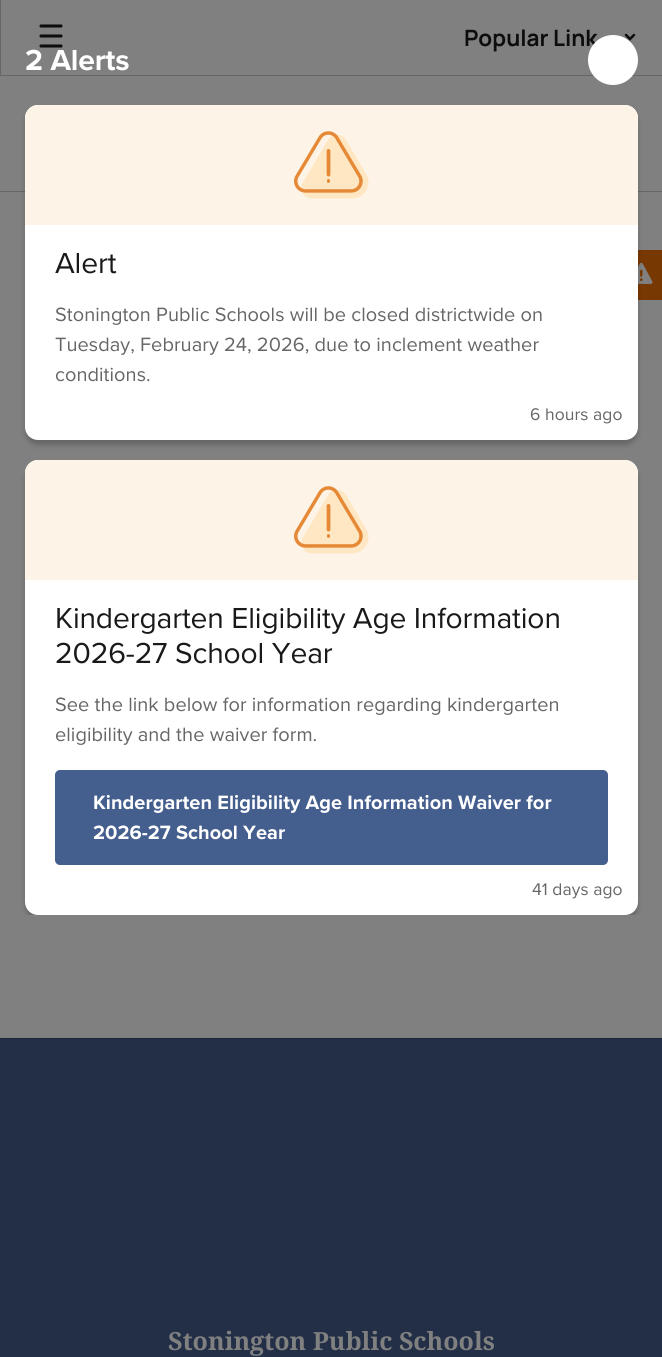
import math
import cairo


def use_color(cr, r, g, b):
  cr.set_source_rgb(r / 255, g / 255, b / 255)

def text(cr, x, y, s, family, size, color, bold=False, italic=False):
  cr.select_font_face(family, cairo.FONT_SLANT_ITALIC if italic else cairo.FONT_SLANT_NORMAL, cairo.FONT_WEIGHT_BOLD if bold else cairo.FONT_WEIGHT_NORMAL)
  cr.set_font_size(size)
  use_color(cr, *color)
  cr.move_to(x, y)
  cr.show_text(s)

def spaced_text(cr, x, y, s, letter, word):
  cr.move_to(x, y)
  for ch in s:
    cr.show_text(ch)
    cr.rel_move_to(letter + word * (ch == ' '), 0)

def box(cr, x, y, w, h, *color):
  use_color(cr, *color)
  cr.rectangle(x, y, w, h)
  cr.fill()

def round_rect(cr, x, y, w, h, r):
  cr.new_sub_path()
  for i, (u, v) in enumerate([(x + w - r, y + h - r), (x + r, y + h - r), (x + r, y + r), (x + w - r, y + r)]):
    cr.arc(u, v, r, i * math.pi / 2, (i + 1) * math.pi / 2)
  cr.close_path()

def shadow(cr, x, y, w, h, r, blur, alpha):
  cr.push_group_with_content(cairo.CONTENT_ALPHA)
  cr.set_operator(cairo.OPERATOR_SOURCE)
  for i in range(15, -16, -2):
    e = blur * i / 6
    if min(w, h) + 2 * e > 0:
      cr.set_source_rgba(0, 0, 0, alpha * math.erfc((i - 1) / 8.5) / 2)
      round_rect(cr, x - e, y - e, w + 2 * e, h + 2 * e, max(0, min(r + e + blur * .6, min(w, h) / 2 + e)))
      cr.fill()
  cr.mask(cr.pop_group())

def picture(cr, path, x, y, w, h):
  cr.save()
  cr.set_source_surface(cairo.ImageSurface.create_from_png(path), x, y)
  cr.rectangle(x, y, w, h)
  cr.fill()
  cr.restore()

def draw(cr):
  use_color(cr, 128, 128, 128)
  cr.paint()
  box(cr, 0, 75, 662, 1, 102, 102, 102)
  box(cr, 0, 0, 1, 75, 102, 102, 102)
  cr.new_path()
  cr.move_to(41, 26)
  cr.line_to(61, 26)
  cr.move_to(41, 36)
  cr.line_to(61, 36)
  cr.move_to(41, 46)
  cr.line_to(61, 46)
  use_color(cr, 13, 13, 13)
  cr.set_line_width(3.1)
  cr.set_line_cap(cairo.LINE_CAP_ROUND)
  cr.stroke()
  cr.new_path()
  cr.move_to(626, 35)
  cr.line_to(630, 39)
  cr.line_to(634, 35)
  cr.set_line_width(2.5)
  cr.stroke()
  box(cr, 0, 191, 662, 1, 102, 102, 102)
  box(cr, 638, 250, 24, 50, 120, 56, 1)
  picture(cr, "img_02.png", 638, 262, 15, 22)
  use_color(cr, 0, 0, 0)
  shadow(cr, 25, 110, 613, 335, 13, 2.5, 0.2)
  use_color(cr, 255, 255, 255)
  round_rect(cr, 25, 105, 613, 335, 13)
  cr.fill()
  use_color(cr, 253, 244, 231)
  cr.new_path()
  cr.move_to(38, 105)
  cr.line_to(625, 105)
  cr.curve_to(632, 105, 638, 111, 638, 118)
  cr.line_to(638, 225)
  cr.line_to(25, 225)
  cr.line_to(25, 118)
  cr.curve_to(25, 111, 31, 105, 38, 105)
  cr.close_path()
  cr.fill()
  picture(cr, "img_01.png", 294, 131, 75, 68)
  cr.save()
  cr.rectangle(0, 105, 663, 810)
  cr.clip()
  use_color(cr, 0, 0, 0)
  shadow(cr, 25, 465, 613, 455, 13, 2.5, 0.2)
  cr.restore()
  use_color(cr, 255, 255, 255)
  round_rect(cr, 25, 460, 613, 455, 13)
  cr.fill()
  use_color(cr, 253, 244, 231)
  cr.new_path()
  cr.move_to(38, 460)
  cr.line_to(625, 460)
  cr.curve_to(632, 460, 638, 466, 638, 473)
  cr.line_to(638, 580)
  cr.line_to(25, 580)
  cr.line_to(25, 473)
  cr.curve_to(25, 466, 31, 460, 38, 460)
  cr.close_path()
  cr.fill()
  picture(cr, "img_01.png", 294, 486, 75, 68)
  use_color(cr, 68, 94, 141)
  round_rect(cr, 55, 770, 553, 95, 5)
  cr.fill()
  box(cr, 0, 1038, 662, 1, 27, 38, 57)
  box(cr, 0, 1039, 662, 318, 34, 47, 71)
  text(cr, 464, 46, "Popular Link", "Manrope", 22.5, (13, 13, 13), bold=True)
  cr.select_font_face("Proxima Nova", cairo.FONT_SLANT_NORMAL, cairo.FONT_WEIGHT_BOLD)
  cr.set_font_size(30)
  use_color(cr, 255, 255, 255)
  spaced_text(cr, 25, 70, "2 Alerts", -0.15, 0)
  cr.new_path()
  cr.arc(613, 60, 25, 0, 2 * math.pi)
  cr.fill()
  cr.select_font_face("Proxima Nova")
  use_color(cr, 25, 25, 25)
  spaced_text(cr, 55, 273, "Alert", -0.15, 0)
  cr.set_font_size(20)
  use_color(cr, 102, 102, 102)
  spaced_text(cr, 55, 321, "Stonington Public Schools will be closed districtwide on", 0.05, 0)
  spaced_text(cr, 55, 351, "Tuesday, February 24, 2026, due to inclement weather", 0.05, 0)
  spaced_text(cr, 55, 381, "conditions.", 0.05, 0)
  cr.set_font_size(17.5)
  spaced_text(cr, 530, 420, "6 hours ago", 0.05, 0)
  cr.set_font_size(30)
  use_color(cr, 25, 25, 25)
  spaced_text(cr, 55, 628, "Kindergarten Eligibility Age Information", -0.15, 0)
  spaced_text(cr, 55, 663, "2026-27 School Year", -0.15, 0)
  cr.set_font_size(20)
  use_color(cr, 102, 102, 102)
  spaced_text(cr, 55, 711, "See the link below for information regarding kindergarten", 0.05, 0)
  spaced_text(cr, 55, 741, "eligibility and the waiver form.", 0.05, 0)
  cr.select_font_face("Proxima Nova", cairo.FONT_SLANT_NORMAL, cairo.FONT_WEIGHT_BOLD)
  use_color(cr, 255, 255, 255)
  spaced_text(cr, 93, 809, "Kindergarten Eligibility Age Information Waiver for", 0.05, 0)
  spaced_text(cr, 93, 839, "2026-27 School Year", 0.05, 0)
  cr.select_font_face("Proxima Nova")
  cr.set_font_size(17.5)
  use_color(cr, 102, 102, 102)
  spaced_text(cr, 532, 895, "41 days ago", 0.05, 0)
  text(cr, 168, 1350, "Stonington Public Schools", "Noto Serif", 25, (128, 128, 128), bold=True)


surface = cairo.ImageSurface(cairo.FORMAT_RGB24, 662, 1357)
cr = cairo.Context(surface)
options = cairo.FontOptions()
options.set_hint_metrics(cairo.HINT_METRICS_OFF)
options.set_hint_style(cairo.HINT_STYLE_NONE)
cr.set_font_options(options)
cr.set_miter_limit(4)
draw(cr)
surface.write_to_png("out.png")
